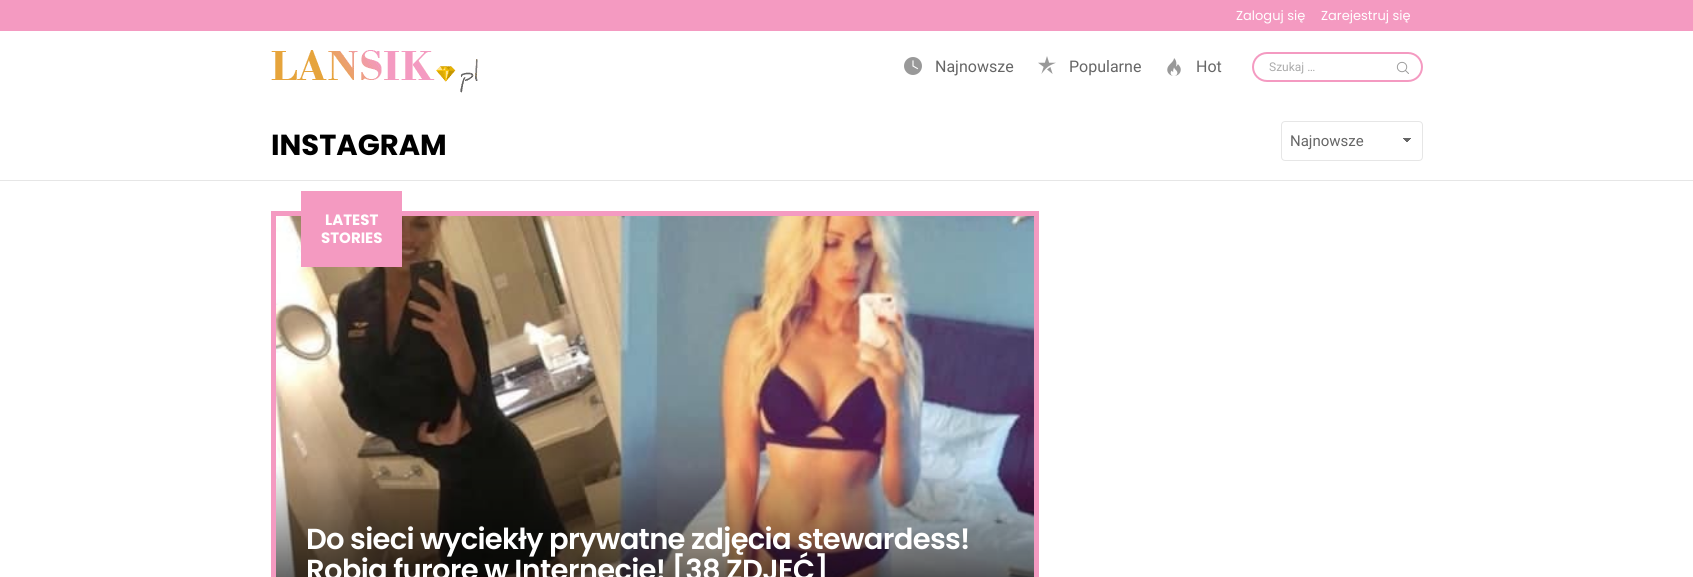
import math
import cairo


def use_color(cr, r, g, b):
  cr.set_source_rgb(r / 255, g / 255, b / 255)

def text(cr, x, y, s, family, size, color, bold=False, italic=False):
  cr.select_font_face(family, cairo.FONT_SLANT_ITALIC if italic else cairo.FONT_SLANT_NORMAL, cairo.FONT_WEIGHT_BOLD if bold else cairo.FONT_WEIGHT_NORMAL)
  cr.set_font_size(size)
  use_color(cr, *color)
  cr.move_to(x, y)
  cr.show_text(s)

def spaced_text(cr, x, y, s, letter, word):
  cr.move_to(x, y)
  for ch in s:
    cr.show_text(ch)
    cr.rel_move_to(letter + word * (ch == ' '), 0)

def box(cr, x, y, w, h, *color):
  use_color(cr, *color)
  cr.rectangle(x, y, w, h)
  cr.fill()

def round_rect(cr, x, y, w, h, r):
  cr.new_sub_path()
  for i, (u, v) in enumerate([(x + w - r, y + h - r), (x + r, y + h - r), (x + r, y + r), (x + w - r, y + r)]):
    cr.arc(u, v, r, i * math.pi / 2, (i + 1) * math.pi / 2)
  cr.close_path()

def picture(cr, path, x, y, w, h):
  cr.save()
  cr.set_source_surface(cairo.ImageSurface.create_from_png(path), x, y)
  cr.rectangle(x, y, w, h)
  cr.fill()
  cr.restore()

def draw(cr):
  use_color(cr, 255, 255, 255)
  cr.paint()
  box(cr, 0, 0, 1693, 31, 244, 154, 193)
  picture(cr, "img_01.png", 271, 50, 207, 43)
  picture(cr, "img_02.png", 904, 57, 18, 18)
  picture(cr, "img_03.png", 1038, 56, 18, 18)
  picture(cr, "img_04.png", 1167, 58, 14, 18)
  round_rect(cr, 1253, 53, 169, 28, 14)
  cr.stroke()
  picture(cr, "img_05.png", 1396, 61, 13, 13)
  gradient = cairo.LinearGradient(1407, 138, 1412, 142)
  gradient.add_color_stop_rgba(0.5, 0.4, 0.4, 0.4, 1)
  gradient.add_color_stop_rgba(0.5, 1, 1, 1, 1)
  cr.set_source(gradient)
  cr.rectangle(1407, 138, 5, 4)
  cr.fill()
  gradient = cairo.LinearGradient(1402, 142, 1407, 138)
  gradient.add_color_stop_rgba(0.5, 1, 1, 1, 1)
  gradient.add_color_stop_rgba(0.5, 0.4, 0.4, 0.4, 1)
  cr.set_source(gradient)
  cr.rectangle(1402, 138, 5, 4)
  cr.fill()
  round_rect(cr, 1281.5, 121.5, 141, 39, 3.5)
  use_color(cr, 230, 230, 230)
  cr.set_line_width(1)
  cr.stroke()
  box(cr, 0, 180, 1693, 1, 230, 230, 230)
  cr.rectangle(273.5, 213.5, 763, 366)
  use_color(cr, 244, 154, 193)
  cr.set_line_width(5)
  cr.stroke()
  picture(cr, "img_06.png", 276, 216, 758, 361)
  box(cr, 301, 191, 101, 76, 244, 154, 193)
  text(cr, 1236, 20, "Zaloguj się", "Poppins", 13, (255, 255, 255))
  text(cr, 1321, 20, "Zarejestruj się", "Poppins", 13, (255, 255, 255))
  text(cr, 935, 72, "Najnowsze", "Roboto", 16, (102, 102, 102))
  text(cr, 1069, 72, "Popularne", "Roboto", 16, (102, 102, 102))
  text(cr, 1196, 72, "Hot", "Roboto", 16, (102, 102, 102))
  text(cr, 1269, 71, "Szukaj …", "Roboto", 12, (171, 171, 171))
  text(cr, 271, 155, "INSTAGRAM", "Poppins", 29, (0, 0, 0), bold=True)
  text(cr, 1290, 146, "Najnowsze", "Roboto", 15, (102, 102, 102))
  text(cr, 325, 225, "LATEST", "Poppins", 15, (255, 255, 255), bold=True)
  text(cr, 321, 243, "STORIES", "Poppins", 15, (255, 255, 255), bold=True)
  cr.select_font_face("Poppins SemiBold")
  cr.set_font_size(29)
  spaced_text(cr, 306, 549, "Do sieci wyciekły prywatne zdjęcia stewardess!", -0.7, 0)
  spaced_text(cr, 306, 580, "Robią furorę w Internecie! [38 ZDJĘĆ]", -0.7, 0)


surface = cairo.ImageSurface(cairo.FORMAT_RGB24, 1693, 577)
cr = cairo.Context(surface)
options = cairo.FontOptions()
options.set_hint_metrics(cairo.HINT_METRICS_OFF)
options.set_hint_style(cairo.HINT_STYLE_NONE)
cr.set_font_options(options)
cr.set_miter_limit(4)
draw(cr)
surface.write_to_png("out.png")
